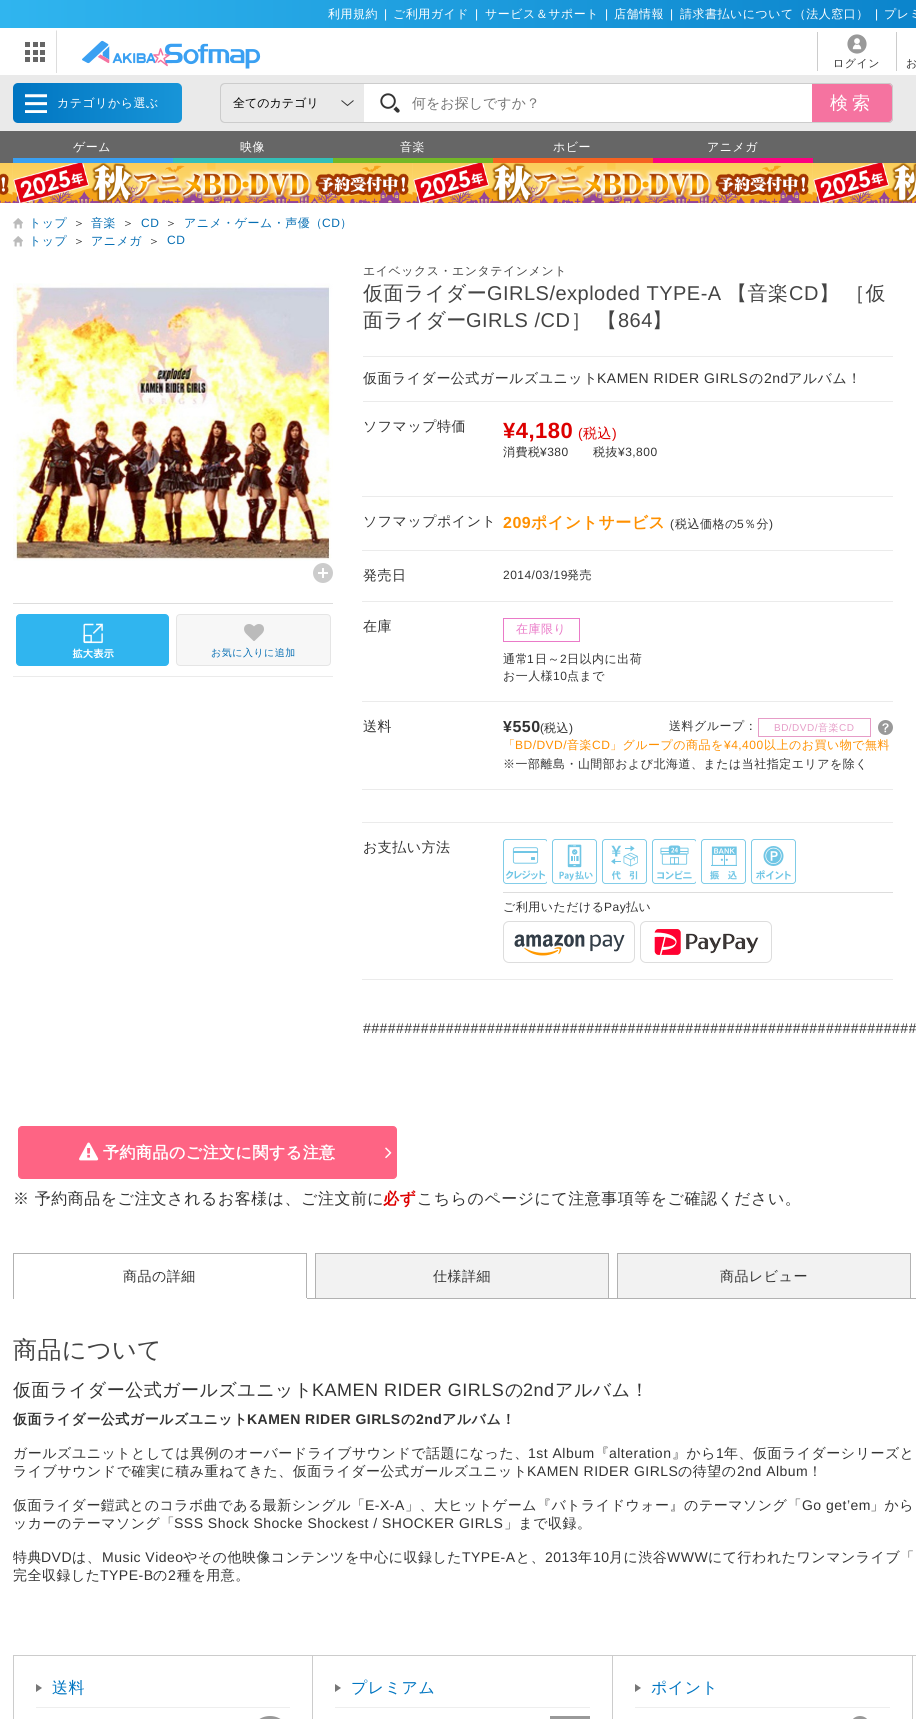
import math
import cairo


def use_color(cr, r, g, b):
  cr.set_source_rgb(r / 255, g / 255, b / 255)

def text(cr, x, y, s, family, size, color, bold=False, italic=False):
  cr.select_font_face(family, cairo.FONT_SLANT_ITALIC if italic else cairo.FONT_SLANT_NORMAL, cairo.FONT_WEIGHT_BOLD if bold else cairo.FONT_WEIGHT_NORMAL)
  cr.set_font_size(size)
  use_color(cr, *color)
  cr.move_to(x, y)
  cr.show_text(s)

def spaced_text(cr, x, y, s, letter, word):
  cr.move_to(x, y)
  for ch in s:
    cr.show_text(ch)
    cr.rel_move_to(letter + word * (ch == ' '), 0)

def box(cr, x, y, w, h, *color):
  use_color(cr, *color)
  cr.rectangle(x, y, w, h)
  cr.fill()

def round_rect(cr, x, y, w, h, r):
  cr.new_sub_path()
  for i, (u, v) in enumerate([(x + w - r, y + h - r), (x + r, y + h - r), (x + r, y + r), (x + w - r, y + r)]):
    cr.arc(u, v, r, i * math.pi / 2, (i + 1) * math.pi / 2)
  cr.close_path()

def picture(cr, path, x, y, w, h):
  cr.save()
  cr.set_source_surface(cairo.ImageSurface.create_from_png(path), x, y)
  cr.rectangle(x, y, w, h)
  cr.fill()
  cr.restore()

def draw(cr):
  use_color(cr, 255, 255, 255)
  cr.paint()
  gradient = cairo.LinearGradient(0, 14, 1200, 14)
  gradient.add_color_stop_rgba(0, 0.188, 0.71, 0.937, 1)
  gradient.add_color_stop_rgba(1, 0, 0.459, 0.757, 1)
  cr.set_source(gradient)
  cr.rectangle(0, 0, 916, 28)
  cr.fill()
  use_color(cr, 221, 221, 221)
  cr.new_path()
  cr.move_to(57, 30)
  cr.line_to(57, 73)
  cr.line_to(56, 73)
  cr.line_to(56, 31)
  cr.close_path()
  cr.fill()
  picture(cr, "img_01.png", 25, 42, 20, 20)
  picture(cr, "img_02.png", 82, 40, 179, 29)
  box(cr, 817, 32, 1, 39, 204, 204, 204)
  picture(cr, "img_03.png", 847, 34, 20, 20)
  box(cr, 896, 32, 1, 39, 204, 204, 204)
  box(cr, 0, 75, 916, 56, 234, 234, 234)
  gradient = cairo.LinearGradient(182, 103, 13, 103)
  gradient.add_color_stop_rgba(0, 0.094, 0.584, 0.847, 1)
  gradient.add_color_stop_rgba(1, 0, 0.459, 0.757, 1)
  cr.set_source(gradient)
  round_rect(cr, 13, 83, 169, 40, 5)
  cr.fill()
  picture(cr, "img_04.png", 25, 94, 22, 19)
  cr.new_path()
  cr.move_to(353.5, 100.5)
  cr.line_to(347.5, 105.5)
  cr.line_to(341.5, 100.5)
  use_color(cr, 51, 51, 51)
  cr.set_line_width(1)
  cr.stroke()
  use_color(cr, 204, 204, 204)
  cr.set_fill_rule(cairo.FILL_RULE_EVEN_ODD)
  cr.new_path()
  cr.move_to(225, 83)
  cr.line_to(364, 83)
  cr.line_to(364, 123)
  cr.line_to(225, 123)
  cr.curve_to(222, 123, 220, 121, 220, 118)
  cr.line_to(220, 88)
  cr.curve_to(220, 85, 222, 83, 225, 83)
  cr.close_path()
  cr.move_to(225, 84)
  cr.line_to(364, 84)
  cr.line_to(364, 122)
  cr.line_to(225, 122)
  cr.curve_to(223, 122, 221, 120, 221, 118)
  cr.line_to(221, 88)
  cr.curve_to(221, 86, 223, 84, 225, 84)
  cr.close_path()
  cr.fill()
  box(cr, 364, 84, 448, 38, 255, 255, 255)
  picture(cr, "img_05.png", 380, 93, 20, 20)
  box(cr, 364, 83, 448, 1, 204, 204, 204)
  box(cr, 364, 122, 448, 1, 204, 204, 204)
  use_color(cr, 245, 115, 160)
  cr.new_path()
  cr.move_to(812, 83)
  cr.line_to(888, 83)
  cr.curve_to(891, 83, 893, 85, 893, 88)
  cr.line_to(893, 118)
  cr.curve_to(893, 121, 891, 123, 888, 123)
  cr.line_to(812, 123)
  cr.close_path()
  cr.fill()
  use_color(cr, 204, 204, 204)
  cr.new_path()
  cr.move_to(812, 83)
  cr.line_to(888, 83)
  cr.curve_to(891, 83, 893, 85, 893, 88)
  cr.line_to(893, 118)
  cr.curve_to(893, 121, 891, 123, 888, 123)
  cr.line_to(812, 123)
  cr.close_path()
  cr.move_to(812, 84)
  cr.line_to(888, 84)
  cr.curve_to(890, 84, 892, 86, 892, 88)
  cr.line_to(892, 118)
  cr.curve_to(892, 120, 890, 122, 888, 122)
  cr.line_to(812, 122)
  cr.close_path()
  cr.fill()
  box(cr, 0, 131, 916, 32, 102, 102, 102)
  box(cr, 13, 158, 160, 5, 58, 160, 242)
  box(cr, 173, 158, 160, 5, 51, 191, 184)
  box(cr, 333, 158, 160, 5, 116, 183, 39)
  box(cr, 493, 158, 160, 5, 245, 98, 33)
  box(cr, 653, 158, 160, 5, 252, 0, 128)
  picture(cr, "img_06.png", 0, 163, 916, 40)
  picture(cr, "img_07.png", 13, 218, 10, 11)
  picture(cr, "img_07.png", 13, 236, 10, 11)
  picture(cr, "img_08.png", 13, 283, 320, 278)
  use_color(cr, 204, 204, 204)
  cr.arc(323, 573, 10, 0, 2 * math.pi)
  cr.fill()
  box(cr, 318, 572, 10, 2, 255, 255, 255)
  box(cr, 322, 568, 2, 10, 255, 255, 255)
  box(cr, 13, 603, 320, 1, 221, 221, 221)
  use_color(cr, 48, 181, 239)
  round_rect(cr, 16.5, 614.5, 152, 51, 3.5)
  cr.fill_preserve()
  cr.stroke()
  picture(cr, "img_09.png", 72, 623, 42, 36)
  use_color(cr, 247, 247, 247)
  round_rect(cr, 176.5, 614.5, 154, 51, 3.5)
  cr.fill_preserve()
  use_color(cr, 229, 229, 229)
  cr.stroke()
  picture(cr, "img_10.png", 244, 624, 20, 17)
  box(cr, 13, 676, 320, 1, 235, 235, 235)
  box(cr, 363, 356, 530, 1, 235, 235, 235)
  box(cr, 363, 401, 530, 1, 235, 235, 235)
  box(cr, 362, 496, 531, 1, 235, 235, 235)
  box(cr, 362, 550, 531, 1, 235, 235, 235)
  box(cr, 362, 601, 531, 1, 235, 235, 235)
  box(cr, 362, 701, 531, 1, 235, 235, 235)
  cr.rectangle(503.5, 618.5, 76, 23)
  use_color(cr, 234, 122, 200)
  cr.stroke()
  box(cr, 362, 789, 531, 1, 235, 235, 235)
  cr.rectangle(758.5, 718.5, 112, 18)
  use_color(cr, 230, 156, 199)
  cr.stroke()
  picture(cr, "img_11.png", 878, 720, 15, 15)
  box(cr, 362, 822, 531, 1, 235, 235, 235)
  box(cr, 362, 979, 531, 1, 235, 235, 235)
  picture(cr, "img_12.png", 503, 839, 44, 45)
  picture(cr, "img_13.png", 552, 839, 45, 45)
  picture(cr, "img_14.png", 602, 839, 45, 45)
  picture(cr, "img_15.png", 652, 839, 44, 45)
  picture(cr, "img_16.png", 701, 839, 45, 45)
  picture(cr, "img_17.png", 751, 839, 45, 45)
  box(cr, 503, 892, 390, 1, 221, 221, 221)
  round_rect(cr, 503.5, 921.5, 131, 41, 5.5)
  cr.stroke()
  picture(cr, "img_18.png", 514, 934, 111, 22)
  round_rect(cr, 640.5, 921.5, 131, 41, 5.5)
  cr.stroke()
  picture(cr, "img_19.png", 654, 929, 105, 26)
  use_color(cr, 254, 100, 132)
  round_rect(cr, 18.5, 1126.5, 378, 52, 3.5)
  cr.fill_preserve()
  cr.stroke()
  picture(cr, "img_20.png", 79, 1142, 20, 19)
  picture(cr, "img_21.png", 385, 1147, 7, 12)
  box(cr, 307, 1298, 609, 1, 178, 178, 178)
  box(cr, 13, 1253, 294, 1, 178, 178, 178)
  box(cr, 306, 1253, 1, 46, 178, 178, 178)
  box(cr, 306, 1298, 1, 1, 255, 255, 255)
  box(cr, 13, 1253, 1, 46, 178, 178, 178)
  use_color(cr, 242, 242, 242)
  cr.rectangle(315.5, 1253.5, 293, 45)
  cr.fill_preserve()
  use_color(cr, 178, 178, 178)
  cr.stroke()
  use_color(cr, 242, 242, 242)
  cr.rectangle(617.5, 1253.5, 293, 45)
  cr.fill_preserve()
  use_color(cr, 178, 178, 178)
  cr.stroke()
  box(cr, 13, 1655, 903, 1, 204, 204, 204)
  box(cr, 13, 1655, 1, 64, 204, 204, 204)
  box(cr, 312, 1656, 1, 63, 204, 204, 204)
  box(cr, 36, 1707, 254, 1, 238, 238, 238)
  use_color(cr, 119, 119, 119)
  cr.set_fill_rule(cairo.FILL_RULE_WINDING)
  cr.new_path()
  cr.move_to(36, 1692)
  cr.line_to(36, 1684)
  cr.line_to(42, 1688)
  cr.close_path()
  cr.fill()
  picture(cr, "img_22.png", 259, 1716, 22, 3)
  box(cr, 612, 1656, 1, 63, 204, 204, 204)
  box(cr, 335, 1707, 255, 1, 238, 238, 238)
  use_color(cr, 119, 119, 119)
  cr.new_path()
  cr.move_to(335, 1692)
  cr.line_to(335, 1684)
  cr.line_to(341, 1688)
  cr.close_path()
  cr.fill()
  box(cr, 550, 1716, 40, 3, 153, 153, 153)
  box(cr, 912, 1656, 1, 63, 204, 204, 204)
  box(cr, 635, 1707, 255, 1, 238, 238, 238)
  use_color(cr, 119, 119, 119)
  cr.new_path()
  cr.move_to(635, 1692)
  cr.line_to(635, 1684)
  cr.line_to(641, 1688)
  cr.close_path()
  cr.fill()
  picture(cr, "img_23.png", 853, 1716, 14, 3)
  cr.select_font_face("WenQuanYi Zen Hei Medium")
  cr.set_font_size(12)
  use_color(cr, 255, 255, 255)
  spaced_text(cr, 328, 18, "利用規約", 0.48, 0)
  cr.select_font_face("Liberation Sans")
  spaced_text(cr, 384, 18, "|", 0.48, 0)
  cr.select_font_face("WenQuanYi Zen Hei Medium")
  spaced_text(cr, 393, 18, "ご利用ガイド", 0.48, 0)
  cr.select_font_face("Liberation Sans")
  spaced_text(cr, 475, 18, "|", 0.48, 0)
  cr.select_font_face("WenQuanYi Zen Hei Medium")
  spaced_text(cr, 485, 18, "サービス＆サポート", 0.48, 0)
  cr.select_font_face("Liberation Sans")
  spaced_text(cr, 605, 18, "|", 0.48, 0)
  cr.select_font_face("WenQuanYi Zen Hei Medium")
  spaced_text(cr, 614, 18, "店舗情報", 0.48, 0)
  cr.select_font_face("Liberation Sans")
  spaced_text(cr, 670, 18, "|", 0.48, 0)
  cr.select_font_face("WenQuanYi Zen Hei Medium")
  spaced_text(cr, 680, 18, "請求書払いについて（法人窓口）", 0.48, 0)
  cr.select_font_face("Liberation Sans")
  spaced_text(cr, 875, 18, "|", 0.48, 0)
  cr.select_font_face("WenQuanYi Zen Hei Medium")
  spaced_text(cr, 884, 18, "プレミ", 0.48, 0)
  cr.set_font_size(11)
  use_color(cr, 51, 51, 51)
  spaced_text(cr, 833, 67, "ログイン", 0.48, 0)
  spaced_text(cr, 906, 67, "お", 0.48, 0)
  cr.set_font_size(12)
  use_color(cr, 255, 255, 255)
  spaced_text(cr, 57, 107, "カテゴリから選ぶ", 0.48, 0)
  text(cr, 233, 107, "全てのカテゴリ", "WenQuanYi Zen Hei Medium", 12, (0, 0, 0))
  text(cr, 412, 108, "何をお探しですか？", "WenQuanYi Zen Hei Medium", 14, (117, 117, 117))
  cr.set_font_size(18)
  use_color(cr, 255, 255, 255)
  spaced_text(cr, 830, 109, "検索", 4, 0)
  cr.set_font_size(12)
  spaced_text(cr, 73, 151, "ゲーム", 0.48, 0)
  spaced_text(cr, 240, 151, "映像", 0.48, 0)
  spaced_text(cr, 400, 151, "音楽", 0.48, 0)
  spaced_text(cr, 553, 151, "ホビー", 0.48, 0)
  spaced_text(cr, 707, 151, "アニメガ", 0.48, 0)
  use_color(cr, 6, 110, 179)
  spaced_text(cr, 29, 227, "トップ", 0.48, 0)
  use_color(cr, 51, 51, 51)
  spaced_text(cr, 73, 227, "＞", 0.48, 0)
  use_color(cr, 6, 110, 179)
  spaced_text(cr, 91, 227, "音楽", 0.48, 0)
  use_color(cr, 51, 51, 51)
  spaced_text(cr, 122, 227, "＞", 0.48, 0)
  cr.select_font_face("Liberation Sans")
  use_color(cr, 6, 110, 179)
  spaced_text(cr, 141, 227, "CD", 0.48, 0)
  cr.select_font_face("WenQuanYi Zen Hei Medium")
  use_color(cr, 51, 51, 51)
  spaced_text(cr, 165, 227, "＞", 0.48, 0)
  use_color(cr, 6, 110, 179)
  spaced_text(cr, 184, 227, "アニメ・ゲーム・声優（", 0.48, 0)
  cr.select_font_face("Liberation Sans")
  spaced_text(cr, 322, 227, "CD", 0.48, 0)
  cr.select_font_face("WenQuanYi Zen Hei Medium")
  spaced_text(cr, 340, 227, "）", 0.48, 0)
  spaced_text(cr, 29, 245, "トップ", 0.48, 0)
  use_color(cr, 51, 51, 51)
  spaced_text(cr, 73, 245, "＞", 0.48, 0)
  use_color(cr, 6, 110, 179)
  spaced_text(cr, 91, 245, "アニメガ", 0.48, 0)
  use_color(cr, 51, 51, 51)
  spaced_text(cr, 148, 245, "＞", 0.48, 0)
  cr.select_font_face("Liberation Sans")
  use_color(cr, 6, 110, 179)
  spaced_text(cr, 167, 244, "CD", 0.48, 0)
  cr.select_font_face("WenQuanYi Zen Hei Medium")
  cr.set_font_size(10)
  spaced_text(cr, 211, 656, "お気に入りに追加", 0.48, 0)
  cr.set_font_size(12)
  use_color(cr, 68, 68, 68)
  spaced_text(cr, 363, 275, "エイベックス・エンタテインメント", 0.48, 0)
  cr.set_font_size(20)
  spaced_text(cr, 363, 300, "仮面ライダー", 0.48, 0)
  cr.select_font_face("Liberation Sans")
  spaced_text(cr, 487, 300, "GIRLS/exploded TYPE-A", 0.48, 0)
  cr.select_font_face("WenQuanYi Zen Hei Medium")
  spaced_text(cr, 727, 300, "【音楽", 0.48, 0)
  cr.select_font_face("Liberation Sans")
  spaced_text(cr, 789, 300, "CD", 0.48, 0)
  cr.select_font_face("WenQuanYi Zen Hei Medium")
  spaced_text(cr, 819, 300, "】", 0.48, 0)
  spaced_text(cr, 845, 300, "［仮", 0.48, 0)
  spaced_text(cr, 363, 327, "面ライダー", 0.48, 0)
  cr.select_font_face("Liberation Sans")
  spaced_text(cr, 466, 327, "GIRLS /CD", 0.48, 0)
  cr.select_font_face("WenQuanYi Zen Hei Medium")
  spaced_text(cr, 571, 327, "］", 0.48, 0)
  spaced_text(cr, 597, 327, "【", 0.48, 0)
  cr.select_font_face("Liberation Sans")
  spaced_text(cr, 618, 327, "864", 0.48, 0)
  cr.select_font_face("WenQuanYi Zen Hei Medium")
  spaced_text(cr, 652, 327, "】", 0.48, 0)
  cr.set_font_size(14)
  use_color(cr, 51, 51, 51)
  spaced_text(cr, 363, 383, "仮面ライダー公式ガールズユニット", 0.48, 0)
  cr.select_font_face("Liberation Sans")
  spaced_text(cr, 597, 383, "KAMEN RIDER GIRLS", 0.48, 0)
  cr.select_font_face("WenQuanYi Zen Hei Medium")
  spaced_text(cr, 749, 383, "の", 0.48, 0)
  cr.select_font_face("Liberation Sans")
  spaced_text(cr, 764, 383, "2nd", 0.48, 0)
  cr.select_font_face("WenQuanYi Zen Hei Medium")
  spaced_text(cr, 788, 383, "アルバム！", 0.48, 0)
  spaced_text(cr, 363, 431, "ソフマップ特価", 0.48, 0)
  cr.select_font_face("Liberation Sans", cairo.FONT_SLANT_NORMAL, cairo.FONT_WEIGHT_BOLD)
  cr.set_font_size(22)
  use_color(cr, 221, 0, 0)
  spaced_text(cr, 503, 438, "¥4,180", 0.48, 0)
  cr.select_font_face("Liberation Sans")
  cr.set_font_size(14)
  spaced_text(cr, 578, 438, "(", 0.48, 0)
  cr.select_font_face("WenQuanYi Zen Hei Medium")
  spaced_text(cr, 583, 438, "税込", 0.48, 0)
  cr.select_font_face("Liberation Sans")
  spaced_text(cr, 612, 438, ")", 0.48, 0)
  cr.select_font_face("WenQuanYi Zen Hei Medium")
  cr.set_font_size(12)
  use_color(cr, 51, 51, 51)
  spaced_text(cr, 503, 456, "消費税", 0.48, 0)
  cr.select_font_face("Liberation Sans")
  spaced_text(cr, 540, 456, "¥380", 0.48, 0)
  cr.select_font_face("WenQuanYi Zen Hei Medium")
  spaced_text(cr, 593, 456, "税抜", 0.48, 0)
  cr.select_font_face("Liberation Sans")
  spaced_text(cr, 618, 456, "¥3,800", 0.48, 0)
  cr.select_font_face("WenQuanYi Zen Hei Medium")
  cr.set_font_size(14)
  spaced_text(cr, 363, 526, "ソフマップポイント", 0.48, 0)
  cr.select_font_face("Liberation Sans", cairo.FONT_SLANT_NORMAL, cairo.FONT_WEIGHT_BOLD)
  cr.set_font_size(16)
  use_color(cr, 255, 144, 0)
  spaced_text(cr, 503, 528, "209", 0.48, 0)
  cr.select_font_face("WenQuanYi Zen Hei", cairo.FONT_SLANT_NORMAL, cairo.FONT_WEIGHT_BOLD)
  spaced_text(cr, 531, 528, "ポイントサービス", 0.48, 0)
  cr.select_font_face("Liberation Sans")
  cr.set_font_size(12)
  use_color(cr, 51, 51, 51)
  spaced_text(cr, 670, 528, "(", 0.48, 0)
  cr.select_font_face("WenQuanYi Zen Hei Medium")
  spaced_text(cr, 675, 528, "税込価格の", 0.48, 0)
  cr.select_font_face("Liberation Sans")
  spaced_text(cr, 737, 528, "5", 0.48, 0)
  cr.select_font_face("WenQuanYi Zen Hei Medium")
  spaced_text(cr, 744, 528, "％分", 0.48, 0)
  cr.select_font_face("Liberation Sans")
  spaced_text(cr, 769, 528, ")", 0.48, 0)
  cr.select_font_face("WenQuanYi Zen Hei Medium")
  cr.set_font_size(14)
  spaced_text(cr, 363, 580, "発売日", 0.48, 0)
  cr.select_font_face("Liberation Sans")
  cr.set_font_size(12)
  spaced_text(cr, 503, 579, "2014/03/19", 0.48, 0)
  cr.select_font_face("WenQuanYi Zen Hei Medium")
  spaced_text(cr, 567, 579, "発売", 0.48, 0)
  cr.set_font_size(14)
  spaced_text(cr, 363, 631, "在庫", 0.48, 0)
  cr.set_font_size(12)
  use_color(cr, 234, 122, 200)
  spaced_text(cr, 516, 633, "在庫限り", 0.48, 0)
  use_color(cr, 51, 51, 51)
  spaced_text(cr, 503, 663, "通常", 0.48, 0)
  cr.select_font_face("Liberation Sans")
  spaced_text(cr, 527, 663, "1", 0.48, 0)
  cr.select_font_face("WenQuanYi Zen Hei Medium")
  spaced_text(cr, 535, 663, "日～", 0.48, 0)
  cr.select_font_face("Liberation Sans")
  spaced_text(cr, 560, 663, "2", 0.48, 0)
  cr.select_font_face("WenQuanYi Zen Hei Medium")
  spaced_text(cr, 567, 663, "日以内に出荷", 0.48, 0)
  spaced_text(cr, 503, 680, "お一人様", 0.48, 0)
  cr.select_font_face("Liberation Sans")
  spaced_text(cr, 553, 680, "10", 0.48, 0)
  cr.select_font_face("WenQuanYi Zen Hei Medium")
  spaced_text(cr, 567, 680, "点まで", 0.48, 0)
  cr.set_font_size(14)
  spaced_text(cr, 363, 731, "送料", 0.48, 0)
  cr.select_font_face("Liberation Sans", cairo.FONT_SLANT_NORMAL, cairo.FONT_WEIGHT_BOLD)
  cr.set_font_size(16)
  spaced_text(cr, 503, 732, "¥550", 0.48, 0)
  cr.select_font_face("Liberation Sans")
  cr.set_font_size(12)
  spaced_text(cr, 540, 732, "(", 0.48, 0)
  cr.select_font_face("WenQuanYi Zen Hei Medium")
  spaced_text(cr, 544, 732, "税込", 0.48, 0)
  cr.select_font_face("Liberation Sans")
  spaced_text(cr, 569, 732, ")", 0.48, 0)
  cr.select_font_face("WenQuanYi Zen Hei Medium")
  spaced_text(cr, 669, 730, "送料グループ：", 0.48, 0)
  cr.select_font_face("Liberation Sans")
  cr.set_font_size(10)
  use_color(cr, 230, 156, 199)
  spaced_text(cr, 774, 731, "BD/DVD/", 0.48, 0)
  cr.select_font_face("WenQuanYi Zen Hei Medium")
  spaced_text(cr, 818, 731, "音楽", 0.48, 0)
  cr.select_font_face("Liberation Sans")
  spaced_text(cr, 839, 731, "CD", 0.48, 0)
  cr.select_font_face("WenQuanYi Zen Hei Medium")
  cr.set_font_size(12)
  use_color(cr, 255, 144, 0)
  spaced_text(cr, 503, 749, "「", 0.48, 0)
  cr.select_font_face("Liberation Sans")
  spaced_text(cr, 515, 749, "BD/DVD/", 0.48, 0)
  cr.select_font_face("WenQuanYi Zen Hei Medium")
  spaced_text(cr, 567, 749, "音楽", 0.48, 0)
  cr.select_font_face("Liberation Sans")
  spaced_text(cr, 592, 749, "CD", 0.48, 0)
  cr.select_font_face("WenQuanYi Zen Hei Medium")
  spaced_text(cr, 610, 749, "」グループの商品を", 0.48, 0)
  cr.select_font_face("Liberation Sans")
  spaced_text(cr, 724, 749, "¥4,400", 0.48, 0)
  cr.select_font_face("WenQuanYi Zen Hei Medium")
  spaced_text(cr, 764, 749, "以上のお買い物で無料", 0.48, 0)
  use_color(cr, 51, 51, 51)
  spaced_text(cr, 503, 768, "※一部離島・山間部および北海道、または当社指定エリアを除く", 0.48, 0)
  cr.set_font_size(14)
  spaced_text(cr, 363, 852, "お支払い方法", 0.48, 0)
  cr.set_font_size(12)
  spaced_text(cr, 503, 911, "ご利用いただける", 0.48, 0)
  cr.select_font_face("Liberation Sans")
  spaced_text(cr, 604, 911, "Pay", 0.48, 0)
  cr.select_font_face("WenQuanYi Zen Hei Medium")
  spaced_text(cr, 626, 911, "払い", 0.48, 0)
  cr.select_font_face("Liberation Sans")
  cr.set_font_size(14)
  spaced_text(cr, 363, 1033, "###################################################################", 0.48, 0)
  cr.select_font_face("WenQuanYi Zen Hei", cairo.FONT_SLANT_NORMAL, cairo.FONT_WEIGHT_BOLD)
  cr.set_font_size(16)
  use_color(cr, 255, 255, 255)
  spaced_text(cr, 103, 1158, "予約商品のご注文に関する注意", 0.48, 0)
  cr.select_font_face("WenQuanYi Zen Hei Medium")
  use_color(cr, 51, 51, 51)
  spaced_text(cr, 13, 1204, "※ 予約商品をご注文されるお客様は、ご注文前に", 0.48, 0)
  cr.select_font_face("WenQuanYi Zen Hei", cairo.FONT_SLANT_NORMAL, cairo.FONT_WEIGHT_BOLD)
  use_color(cr, 221, 0, 0)
  spaced_text(cr, 383, 1204, "必ず", 0.48, 0)
  cr.select_font_face("WenQuanYi Zen Hei Medium")
  use_color(cr, 51, 51, 51)
  spaced_text(cr, 417, 1204, "こちらのページにて注意事項等をご確認ください。", 0.48, 0)
  cr.set_font_size(14)
  spaced_text(cr, 123, 1281, "商品の詳細", 0.48, 0)
  spaced_text(cr, 433, 1281, "仕様詳細", 0.48, 0)
  spaced_text(cr, 720, 1281, "商品レビュー", 0.48, 0)
  cr.set_font_size(24)
  use_color(cr, 68, 68, 68)
  spaced_text(cr, 13, 1358, "商品について", 0.48, 0)
  cr.set_font_size(18)
  use_color(cr, 51, 51, 51)
  spaced_text(cr, 13, 1396, "仮面ライダー公式ガールズユニット", 0.48, 0)
  cr.select_font_face("Liberation Sans")
  spaced_text(cr, 312, 1396, "KAMEN RIDER GIRLS", 0.48, 0)
  cr.select_font_face("WenQuanYi Zen Hei Medium")
  spaced_text(cr, 505, 1396, "の", 0.48, 0)
  cr.select_font_face("Liberation Sans")
  spaced_text(cr, 523, 1396, "2nd", 0.48, 0)
  cr.select_font_face("WenQuanYi Zen Hei Medium")
  spaced_text(cr, 555, 1396, "アルバム！", 0.48, 0)
  cr.select_font_face("WenQuanYi Zen Hei", cairo.FONT_SLANT_NORMAL, cairo.FONT_WEIGHT_BOLD)
  cr.set_font_size(14)
  spaced_text(cr, 13, 1424, "仮面ライダー公式ガールズユニット", 0.48, 0)
  cr.select_font_face("Liberation Sans", cairo.FONT_SLANT_NORMAL, cairo.FONT_WEIGHT_BOLD)
  spaced_text(cr, 247, 1424, "KAMEN RIDER GIRLS", 0.48, 0)
  cr.select_font_face("WenQuanYi Zen Hei", cairo.FONT_SLANT_NORMAL, cairo.FONT_WEIGHT_BOLD)
  spaced_text(cr, 401, 1424, "の", 0.48, 0)
  cr.select_font_face("Liberation Sans", cairo.FONT_SLANT_NORMAL, cairo.FONT_WEIGHT_BOLD)
  spaced_text(cr, 416, 1424, "2nd", 0.48, 0)
  cr.select_font_face("WenQuanYi Zen Hei", cairo.FONT_SLANT_NORMAL, cairo.FONT_WEIGHT_BOLD)
  spaced_text(cr, 442, 1424, "アルバム！", 0.48, 0)
  cr.select_font_face("WenQuanYi Zen Hei Medium")
  spaced_text(cr, 13, 1458, "ガールズユニットとしては異例のオーバードライブサウンドで話題になった、", 0.48, 0)
  cr.select_font_face("Liberation Sans")
  spaced_text(cr, 528, 1458, "1st Album", 0.48, 0)
  cr.select_font_face("WenQuanYi Zen Hei Medium")
  spaced_text(cr, 595, 1458, "『", 0.48, 0)
  cr.select_font_face("Liberation Sans")
  spaced_text(cr, 609, 1458, "alteration", 0.48, 0)
  cr.select_font_face("WenQuanYi Zen Hei Medium")
  spaced_text(cr, 672, 1458, "』から", 0.48, 0)
  cr.select_font_face("Liberation Sans")
  spaced_text(cr, 716, 1458, "1", 0.48, 0)
  cr.select_font_face("WenQuanYi Zen Hei Medium")
  spaced_text(cr, 724, 1458, "年、仮面ライダーシリーズと", 0.48, 0)
  spaced_text(cr, 13, 1476, "ライブサウンドで確実に積み重ねてきた、仮面ライダー公式ガールズユニット", 0.48, 0)
  cr.select_font_face("Liberation Sans")
  spaced_text(cr, 527, 1476, "KAMEN RIDER GIRLS", 0.48, 0)
  cr.select_font_face("WenQuanYi Zen Hei Medium")
  spaced_text(cr, 678, 1476, "の待望の", 0.48, 0)
  cr.select_font_face("Liberation Sans")
  spaced_text(cr, 737, 1476, "2nd Album", 0.48, 0)
  cr.select_font_face("WenQuanYi Zen Hei Medium")
  spaced_text(cr, 808, 1476, "！", 0.48, 0)
  spaced_text(cr, 13, 1510, "仮面ライダー鎧武とのコラボ曲である最新シングル「", 0.48, 0)
  cr.select_font_face("Liberation Sans")
  spaced_text(cr, 365, 1510, "E-X-A", 0.48, 0)
  cr.select_font_face("WenQuanYi Zen Hei Medium")
  spaced_text(cr, 405, 1510, "」、大ヒットゲーム『バトライドウォー』のテーマソング「", 0.48, 0)
  cr.select_font_face("Liberation Sans")
  spaced_text(cr, 802, 1510, "Go get’em", 0.48, 0)
  cr.select_font_face("WenQuanYi Zen Hei Medium")
  spaced_text(cr, 870, 1510, "」から", 0.48, 0)
  spaced_text(cr, 13, 1528, "ッカーのテーマソング「", 0.48, 0)
  cr.select_font_face("Liberation Sans")
  spaced_text(cr, 174, 1528, "SSS Shock Shocke Shockest / SHOCKER GIRLS", 0.48, 0)
  cr.select_font_face("WenQuanYi Zen Hei Medium")
  spaced_text(cr, 504, 1528, "」まで収録。", 0.48, 0)
  spaced_text(cr, 13, 1562, "特典", 0.48, 0)
  cr.select_font_face("Liberation Sans")
  spaced_text(cr, 41, 1562, "DVD", 0.48, 0)
  cr.select_font_face("WenQuanYi Zen Hei Medium")
  spaced_text(cr, 72, 1562, "は、", 0.48, 0)
  cr.select_font_face("Liberation Sans")
  spaced_text(cr, 102, 1562, "Music Video", 0.48, 0)
  cr.select_font_face("WenQuanYi Zen Hei Medium")
  spaced_text(cr, 183, 1562, "やその他映像コンテンツを中心に収録した", 0.48, 0)
  cr.select_font_face("Liberation Sans")
  spaced_text(cr, 462, 1562, "TYPE-A", 0.48, 0)
  cr.select_font_face("WenQuanYi Zen Hei Medium")
  spaced_text(cr, 516, 1562, "と、", 0.48, 0)
  cr.select_font_face("Liberation Sans")
  spaced_text(cr, 545, 1562, "2013", 0.48, 0)
  cr.select_font_face("WenQuanYi Zen Hei Medium")
  spaced_text(cr, 578, 1562, "年", 0.48, 0)
  cr.select_font_face("Liberation Sans")
  spaced_text(cr, 593, 1562, "10", 0.48, 0)
  cr.select_font_face("WenQuanYi Zen Hei Medium")
  spaced_text(cr, 609, 1562, "月に渋谷", 0.48, 0)
  cr.select_font_face("Liberation Sans")
  spaced_text(cr, 667, 1562, "WWW", 0.48, 0)
  cr.select_font_face("WenQuanYi Zen Hei Medium")
  spaced_text(cr, 708, 1562, "にて行われたワンマンライブ「", 0.48, 0)
  spaced_text(cr, 13, 1580, "完全収録した", 0.48, 0)
  cr.select_font_face("Liberation Sans")
  spaced_text(cr, 100, 1580, "TYPE-B", 0.48, 0)
  cr.select_font_face("WenQuanYi Zen Hei Medium")
  spaced_text(cr, 153, 1580, "の", 0.48, 0)
  cr.select_font_face("Liberation Sans")
  spaced_text(cr, 168, 1580, "2", 0.48, 0)
  cr.select_font_face("WenQuanYi Zen Hei Medium")
  spaced_text(cr, 177, 1580, "種を用意。", 0.48, 0)
  cr.set_font_size(16)
  use_color(cr, 0, 117, 193)
  spaced_text(cr, 52, 1693, "送料", 0.48, 0)
  spaced_text(cr, 351, 1693, "プレミアム", 0.48, 0)
  spaced_text(cr, 651, 1693, "ポイント", 0.48, 0)


surface = cairo.ImageSurface(cairo.FORMAT_RGB24, 916, 1719)
cr = cairo.Context(surface)
options = cairo.FontOptions()
options.set_hint_metrics(cairo.HINT_METRICS_OFF)
options.set_hint_style(cairo.HINT_STYLE_NONE)
cr.set_font_options(options)
cr.set_miter_limit(4)
draw(cr)
surface.write_to_png("out.png")
